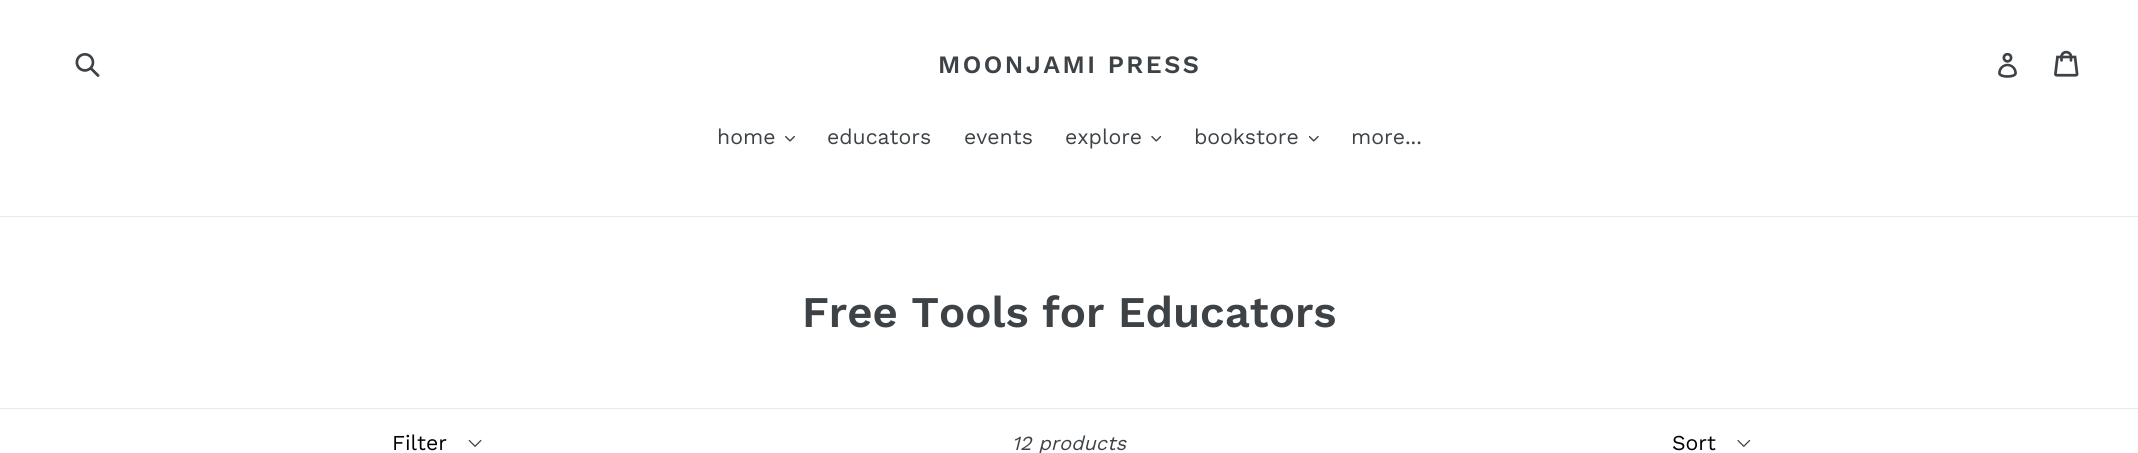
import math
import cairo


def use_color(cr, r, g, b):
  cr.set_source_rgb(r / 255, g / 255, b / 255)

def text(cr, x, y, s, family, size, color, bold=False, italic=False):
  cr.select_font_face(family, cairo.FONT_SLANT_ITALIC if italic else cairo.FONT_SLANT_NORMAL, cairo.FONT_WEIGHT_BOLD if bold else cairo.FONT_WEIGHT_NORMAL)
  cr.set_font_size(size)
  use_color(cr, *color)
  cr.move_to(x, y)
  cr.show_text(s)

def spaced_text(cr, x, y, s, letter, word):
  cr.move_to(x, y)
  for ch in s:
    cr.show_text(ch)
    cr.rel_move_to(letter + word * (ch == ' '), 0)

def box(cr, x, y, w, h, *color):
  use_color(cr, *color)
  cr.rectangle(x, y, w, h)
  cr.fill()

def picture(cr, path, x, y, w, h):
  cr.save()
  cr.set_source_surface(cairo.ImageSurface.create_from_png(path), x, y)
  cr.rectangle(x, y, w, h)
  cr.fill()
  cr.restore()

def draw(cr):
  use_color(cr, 255, 255, 255)
  cr.paint()
  picture(cr, "img_01.png", 75, 53, 25, 24)
  picture(cr, "img_02.png", 1998, 53, 19, 25)
  picture(cr, "img_03.png", 2054, 50, 25, 27)
  box(cr, 0, 216, 2138, 1, 232, 233, 235)
  picture(cr, "img_04.png", 785, 135, 10, 7)
  picture(cr, "img_05.png", 1151, 135, 10, 7)
  picture(cr, "img_06.png", 1309, 135, 10, 7)
  box(cr, 0, 408, 2138, 1, 232, 233, 235)
  picture(cr, "img_07.png", 468, 439, 14, 8)
  picture(cr, "img_08.png", 1737, 439, 14, 9)
  cr.select_font_face("Work Sans SemiBold")
  cr.set_font_size(25)
  use_color(cr, 61, 66, 70)
  spaced_text(cr, 938, 73, "MOONJAMI PRESS", 2.5, 0)
  text(cr, 717, 144, "home", "Work Sans", 21.25, (61, 66, 70))
  text(cr, 827, 144, "educators", "Work Sans", 21.25, (61, 66, 70))
  text(cr, 964, 144, "events", "Work Sans", 21.25, (61, 66, 70))
  text(cr, 1065, 144, "explore", "Work Sans", 21.25, (61, 66, 70))
  text(cr, 1194, 144, "bookstore", "Work Sans", 21.25, (61, 66, 70))
  text(cr, 1351, 144, "more...", "Work Sans", 21.25, (61, 66, 70))
  text(cr, 802, 327, "Free Tools for Educators", "Work Sans SemiBold", 43.75, (61, 66, 70))
  text(cr, 392, 450, "Filter", "Work Sans", 21.25, (0, 0, 0))
  text(cr, 1012, 450, "12 products", "Work Sans", 20, (61, 66, 70), italic=True)
  text(cr, 1672, 450, "Sort", "Work Sans", 21.25, (0, 0, 0))


surface = cairo.ImageSurface(cairo.FORMAT_RGB24, 2138, 453)
cr = cairo.Context(surface)
options = cairo.FontOptions()
options.set_hint_metrics(cairo.HINT_METRICS_OFF)
options.set_hint_style(cairo.HINT_STYLE_NONE)
cr.set_font_options(options)
cr.set_miter_limit(4)
draw(cr)
surface.write_to_png("out.png")
